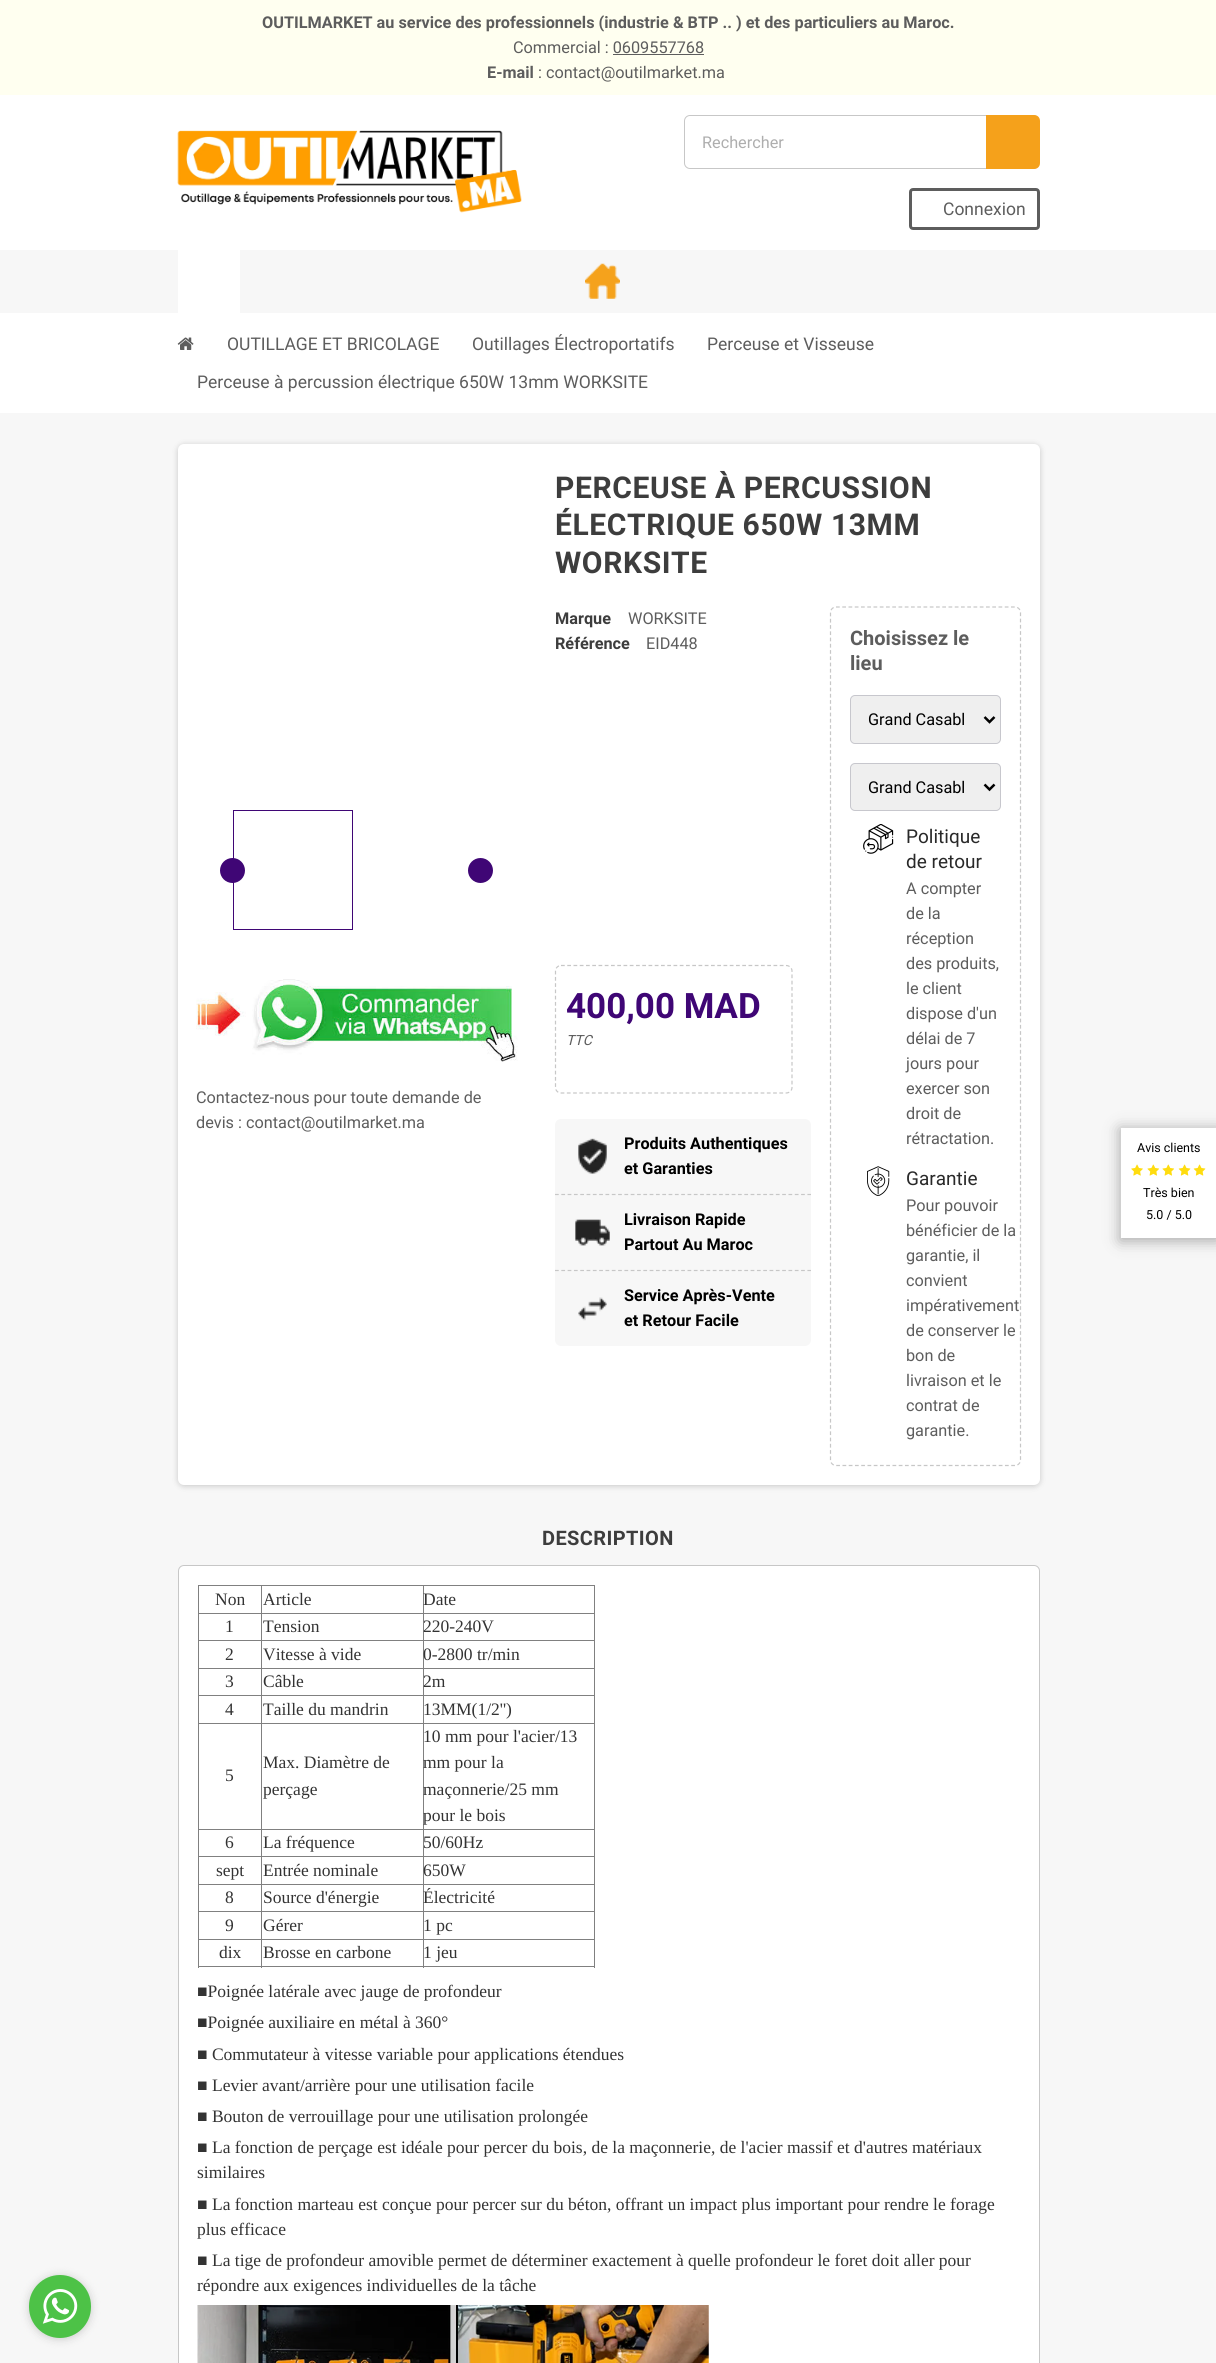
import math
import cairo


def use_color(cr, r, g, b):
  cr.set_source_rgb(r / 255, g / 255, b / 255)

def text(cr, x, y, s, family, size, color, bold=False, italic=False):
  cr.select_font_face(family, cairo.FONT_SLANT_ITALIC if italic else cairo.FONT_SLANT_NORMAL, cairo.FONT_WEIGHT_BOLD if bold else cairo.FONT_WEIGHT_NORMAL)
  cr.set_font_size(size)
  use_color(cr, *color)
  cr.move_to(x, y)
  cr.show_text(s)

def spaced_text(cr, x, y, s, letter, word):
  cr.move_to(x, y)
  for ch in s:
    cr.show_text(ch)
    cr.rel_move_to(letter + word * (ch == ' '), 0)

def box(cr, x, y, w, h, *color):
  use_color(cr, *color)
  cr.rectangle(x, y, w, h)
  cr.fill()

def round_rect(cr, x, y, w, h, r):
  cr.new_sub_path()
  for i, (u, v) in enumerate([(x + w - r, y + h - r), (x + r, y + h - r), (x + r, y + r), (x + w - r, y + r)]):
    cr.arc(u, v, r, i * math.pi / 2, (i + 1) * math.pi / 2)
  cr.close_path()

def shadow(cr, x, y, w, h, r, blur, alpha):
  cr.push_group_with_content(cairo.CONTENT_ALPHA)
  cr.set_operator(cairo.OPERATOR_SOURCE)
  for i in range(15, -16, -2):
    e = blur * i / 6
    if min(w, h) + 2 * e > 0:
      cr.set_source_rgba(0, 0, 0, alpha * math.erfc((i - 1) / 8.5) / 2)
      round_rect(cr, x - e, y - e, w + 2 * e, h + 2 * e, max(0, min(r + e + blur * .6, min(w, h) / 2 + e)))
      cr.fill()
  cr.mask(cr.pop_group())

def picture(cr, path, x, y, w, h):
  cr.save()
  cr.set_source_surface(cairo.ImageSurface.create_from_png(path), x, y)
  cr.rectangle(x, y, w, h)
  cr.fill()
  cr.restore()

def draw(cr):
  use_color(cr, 255, 255, 255)
  cr.paint()
  box(cr, 0, 0, 1216, 95, 255, 255, 240)
  box(cr, 613, 54, 91, 1, 93, 93, 93)
  picture(cr, "img_01.png", 177, 130, 345, 83)
  round_rect(cr, 684.5, 115.5, 354, 53, 5.5)
  use_color(cr, 199, 199, 199)
  cr.set_line_width(1)
  cr.stroke()
  use_color(cr, 245, 161, 27)
  cr.new_path()
  cr.move_to(986, 115)
  cr.line_to(1034, 115)
  cr.curve_to(1037.5, 115, 1040, 117.5, 1040, 121)
  cr.line_to(1040, 163)
  cr.curve_to(1040, 166.5, 1037.5, 169, 1034, 169)
  cr.line_to(986, 169)
  cr.close_path()
  cr.fill()
  round_rect(cr, 910.5, 189.5, 128, 39, 2.5)
  use_color(cr, 93, 93, 93)
  cr.set_line_width(3)
  cr.stroke()
  box(cr, 0, 250, 1216, 63, 247, 247, 247)
  box(cr, 178, 250, 62, 63, 255, 255, 255)
  picture(cr, "img_02.png", 585, 263, 35, 36)
  box(cr, 0, 413, 1216, 1950, 247, 247, 247)
  use_color(cr, 50, 50, 50)
  shadow(cr, 1120, 1129, 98, 112, 0, 7.5, 0.4)
  box(cr, 1121, 1128, 95, 110, 255, 255, 255)
  picture(cr, "img_03.png", 1131, 1164, 12, 12)
  picture(cr, "img_04.png", 1147, 1164, 13, 12)
  picture(cr, "img_04.png", 1162, 1164, 13, 12)
  picture(cr, "img_05.png", 1178, 1164, 13, 12)
  picture(cr, "img_05.png", 1193, 1164, 13, 12)
  picture(cr, "img_06.png", 177, 337, 17, 13)
  use_color(cr, 0, 0, 0)
  shadow(cr, 178, 445, 862, 1041, 6, 3, 0.2)
  use_color(cr, 255, 255, 255)
  round_rect(cr, 178, 444, 862, 1041, 6)
  cr.fill()
  cr.rectangle(233.5, 810.5, 119, 119)
  use_color(cr, 63, 6, 117)
  cr.set_line_width(1)
  cr.stroke()
  cr.arc(232.5, 870.5, 12.5, 0, 2 * math.pi)
  cr.fill()
  cr.arc(480.5, 870.5, 12.5, 0, 2 * math.pi)
  cr.fill()
  picture(cr, "img_07.png", 196, 979, 322, 83)
  cr.new_path()
  cr.move_to(561, 965.5)
  cr.line_to(786, 965.5)
  cr.curve_to(789.5, 965.5, 792, 968, 792, 971)
  cr.line_to(792, 1087.5)
  cr.curve_to(792, 1090.5, 789.5, 1093, 786, 1093)
  cr.line_to(561, 1093)
  cr.curve_to(558, 1093, 555.5, 1090.5, 555.5, 1087.5)
  cr.line_to(555.5, 971)
  cr.curve_to(555.5, 968, 558, 965.5, 561, 965.5)
  cr.close_path()
  use_color(cr, 199, 199, 199)
  cr.set_line_width(1.2)
  cr.set_dash([3.75, 2.5])
  cr.stroke()
  cr.new_path()
  cr.move_to(836, 607)
  cr.line_to(1015, 607)
  cr.curve_to(1018, 607, 1020.5, 609.5, 1020.5, 612.5)
  cr.line_to(1020.5, 1460)
  cr.curve_to(1020.5, 1463, 1018, 1465.5, 1015, 1465.5)
  cr.line_to(836, 1465.5)
  cr.curve_to(833, 1465.5, 830.5, 1463, 830.5, 1460)
  cr.line_to(830.5, 612.5)
  cr.curve_to(830.5, 609.5, 833, 607, 836, 607)
  cr.close_path()
  cr.stroke()
  use_color(cr, 239, 239, 239)
  round_rect(cr, 850.5, 695.5, 150, 48, 4.5)
  cr.fill_preserve()
  use_color(cr, 199, 199, 205)
  cr.set_line_width(1)
  cr.set_dash([])
  cr.stroke()
  cr.new_path()
  cr.move_to(984.5, 717)
  cr.line_to(989.5, 722)
  cr.line_to(994.5, 717)
  use_color(cr, 0, 0, 0)
  cr.set_line_width(2.5)
  cr.stroke()
  use_color(cr, 239, 239, 239)
  round_rect(cr, 850.5, 763.5, 150, 47, 4.5)
  cr.fill_preserve()
  use_color(cr, 199, 199, 205)
  cr.set_line_width(1)
  cr.stroke()
  cr.new_path()
  cr.move_to(984.5, 784.5)
  cr.line_to(989.5, 789.5)
  cr.line_to(994.5, 784.5)
  use_color(cr, 0, 0, 0)
  cr.set_line_width(2.5)
  cr.stroke()
  picture(cr, "img_08.png", 863, 824, 31, 30)
  picture(cr, "img_09.png", 867, 1166, 23, 30)
  use_color(cr, 247, 247, 247)
  round_rect(cr, 555, 1119, 256, 227, 6)
  cr.fill()
  picture(cr, "img_10.png", 578, 1138, 29, 36)
  cr.new_path()
  cr.move_to(555, 1194.5)
  cr.line_to(811, 1194.5)
  use_color(cr, 199, 199, 199)
  cr.set_line_width(1.2)
  cr.set_dash([3.75, 2.56])
  cr.stroke()
  picture(cr, "img_11.png", 575, 1219, 35, 27)
  cr.new_path()
  cr.move_to(555, 1270.5)
  cr.line_to(811, 1270.5)
  cr.stroke()
  picture(cr, "img_12.png", 578, 1297, 29, 24)
  use_color(cr, 255, 255, 255)
  round_rect(cr, 178.5, 1565.5, 861, 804, 5.5)
  cr.fill_preserve()
  use_color(cr, 199, 199, 199)
  cr.set_line_width(1)
  cr.set_dash([])
  cr.stroke()
  box(cr, 198, 1585, 397, 1, 128, 128, 128)
  box(cr, 594, 1585, 1, 383, 128, 128, 128)
  box(cr, 198, 1966, 397, 1, 128, 128, 128)
  box(cr, 198, 1585, 1, 383, 128, 128, 128)
  box(cr, 423, 1613, 172, 1, 128, 128, 128)
  box(cr, 423, 1640, 172, 1, 128, 128, 128)
  box(cr, 423, 1668, 172, 1, 128, 128, 128)
  box(cr, 423, 1695, 172, 1, 128, 128, 128)
  box(cr, 423, 1723, 172, 1, 128, 128, 128)
  box(cr, 423, 1829, 172, 1, 128, 128, 128)
  box(cr, 423, 1856, 172, 1, 128, 128, 128)
  box(cr, 423, 1884, 172, 1, 128, 128, 128)
  box(cr, 423, 1911, 172, 1, 128, 128, 128)
  box(cr, 423, 1939, 172, 1, 128, 128, 128)
  box(cr, 423, 1939, 1, 29, 128, 128, 128)
  box(cr, 261, 1939, 163, 1, 128, 128, 128)
  box(cr, 423, 1911, 1, 29, 128, 128, 128)
  box(cr, 261, 1911, 163, 1, 128, 128, 128)
  box(cr, 423, 1884, 1, 29, 128, 128, 128)
  box(cr, 261, 1884, 163, 1, 128, 128, 128)
  box(cr, 423, 1856, 1, 29, 128, 128, 128)
  box(cr, 261, 1856, 163, 1, 128, 128, 128)
  box(cr, 423, 1829, 1, 29, 128, 128, 128)
  box(cr, 261, 1829, 163, 1, 128, 128, 128)
  box(cr, 423, 1723, 1, 107, 128, 128, 128)
  box(cr, 261, 1723, 163, 1, 128, 128, 128)
  box(cr, 423, 1695, 1, 29, 128, 128, 128)
  box(cr, 261, 1695, 163, 1, 128, 128, 128)
  box(cr, 423, 1668, 1, 28, 128, 128, 128)
  box(cr, 261, 1668, 163, 1, 128, 128, 128)
  box(cr, 423, 1640, 1, 29, 128, 128, 128)
  box(cr, 261, 1640, 163, 1, 128, 128, 128)
  box(cr, 423, 1613, 1, 28, 128, 128, 128)
  box(cr, 261, 1613, 163, 1, 128, 128, 128)
  box(cr, 261, 1939, 1, 29, 128, 128, 128)
  box(cr, 198, 1939, 65, 1, 128, 128, 128)
  box(cr, 261, 1911, 1, 29, 128, 128, 128)
  box(cr, 198, 1911, 65, 1, 128, 128, 128)
  box(cr, 261, 1884, 1, 29, 128, 128, 128)
  box(cr, 198, 1884, 65, 1, 128, 128, 128)
  box(cr, 261, 1856, 1, 29, 128, 128, 128)
  box(cr, 198, 1856, 65, 1, 128, 128, 128)
  box(cr, 261, 1829, 1, 29, 128, 128, 128)
  box(cr, 198, 1829, 65, 1, 128, 128, 128)
  box(cr, 261, 1723, 1, 107, 128, 128, 128)
  box(cr, 198, 1723, 65, 1, 128, 128, 128)
  box(cr, 261, 1695, 1, 29, 128, 128, 128)
  box(cr, 198, 1695, 65, 1, 128, 128, 128)
  box(cr, 261, 1668, 1, 28, 128, 128, 128)
  box(cr, 198, 1668, 65, 1, 128, 128, 128)
  box(cr, 261, 1640, 1, 29, 128, 128, 128)
  box(cr, 198, 1640, 65, 1, 128, 128, 128)
  box(cr, 261, 1613, 1, 28, 128, 128, 128)
  box(cr, 198, 1613, 65, 1, 128, 128, 128)
  box(cr, 261, 1585, 1, 29, 128, 128, 128)
  box(cr, 423, 1585, 1, 29, 128, 128, 128)
  picture(cr, "img_13.png", 197, 2305, 512, 58)
  use_color(cr, 136, 136, 136)
  shadow(cr, 29, 2276, 62, 63, 31, 4.5, 0.4)
  use_color(cr, 77, 194, 71)
  round_rect(cr, 29, 2275, 62, 63, 31)
  cr.fill()
  picture(cr, "img_14.png", 42, 2289, 36, 35)
  text(cr, 262, 28, "OUTILMARKET au service des professionnels (industrie & BTP .. ) et des particuliers au Maroc.", "Roboto", 16.25, (93, 93, 93), bold=True)
  text(cr, 513, 53, "Commercial : 0609557768", "Roboto", 16.25, (93, 93, 93))
  text(cr, 487, 78, "E-mail", "Roboto", 16.25, (93, 93, 93), bold=True)
  text(cr, 538, 78, ": contact@outilmarket.ma", "Roboto", 16.25, (93, 93, 93))
  text(cr, 702, 148, "Rechercher", "Roboto", 16.25, (174, 174, 174))
  text(cr, 943, 215, "Connexion", "Roboto", 17.5, (93, 93, 93))
  text(cr, 1137, 1152, "Avis clients", "Roboto", 12.5, (0, 0, 0))
  text(cr, 1143, 1197, "Très bien", "Roboto", 12.5, (0, 0, 0))
  text(cr, 1146, 1219, "5.0 / 5.0", "Roboto", 12.5, (0, 0, 0))
  text(cr, 227, 350, "OUTILLAGE ET BRICOLAGE", "Roboto", 17.5, (93, 93, 93))
  text(cr, 472, 350, "Outillages Électroportatifs", "Roboto", 17.5, (93, 93, 93))
  text(cr, 707, 350, "Perceuse et Visseuse", "Roboto", 17.5, (93, 93, 93))
  text(cr, 197, 388, "Perceuse à percussion électrique 650W 13mm WORKSITE", "Roboto", 17.5, (93, 93, 93))
  text(cr, 196, 1103, "Contactez-nous pour toute demande de", "Roboto", 16.25, (93, 93, 93))
  text(cr, 196, 1128, "devis : contact@outilmarket.ma", "Roboto", 16.25, (93, 93, 93))
  cr.select_font_face("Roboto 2", cairo.FONT_SLANT_NORMAL, cairo.FONT_WEIGHT_BOLD)
  cr.set_font_size(30)
  use_color(cr, 61, 61, 61)
  spaced_text(cr, 555, 498, "PERCEUSE À PERCUSSION", 0.6, 0)
  spaced_text(cr, 555, 535, "ÉLECTRIQUE 650W 13MM", 0.6, 0)
  spaced_text(cr, 555, 573, "WORKSITE", 0.6, 0)
  text(cr, 555, 624, "Marque", "Roboto", 16.25, (61, 61, 61), bold=True)
  text(cr, 628, 624, "WORKSITE", "Roboto", 16.25, (93, 93, 93))
  text(cr, 555, 649, "Référence", "Roboto", 16.25, (61, 61, 61), bold=True)
  text(cr, 646, 649, "EID448", "Roboto", 16.25, (93, 93, 93))
  text(cr, 566, 1018, "400,00 MAD", "Roboto", 35, (63, 6, 117), bold=True)
  text(cr, 566, 1045, "TTC", "Roboto", 14, (93, 93, 93), italic=True)
  text(cr, 850, 645, "Choisissez le", "Roboto", 20, (93, 93, 93), bold=True)
  text(cr, 850, 670, "lieu", "Roboto", 20, (93, 93, 93), bold=True)
  text(cr, 868, 725, "Grand Casabl", "Roboto", 16.25, (0, 0, 0))
  text(cr, 868, 793, "Grand Casabl", "Roboto", 16.25, (0, 0, 0))
  text(cr, 906, 843, "Politique", "Roboto", 19, (41, 41, 41))
  text(cr, 906, 868, "de retour", "Roboto", 19, (41, 41, 41))
  text(cr, 906, 894, "A compter", "Roboto", 16.25, (93, 93, 93))
  text(cr, 906, 919, "de la", "Roboto", 16.25, (93, 93, 93))
  text(cr, 906, 944, "réception", "Roboto", 16.25, (93, 93, 93))
  text(cr, 906, 969, "des produits,", "Roboto", 16.25, (93, 93, 93))
  text(cr, 906, 994, "le client", "Roboto", 16.25, (93, 93, 93))
  text(cr, 906, 1019, "dispose d'un", "Roboto", 16.25, (93, 93, 93))
  text(cr, 906, 1044, "délai de 7", "Roboto", 16.25, (93, 93, 93))
  text(cr, 906, 1069, "jours pour", "Roboto", 16.25, (93, 93, 93))
  text(cr, 906, 1094, "exercer son", "Roboto", 16.25, (93, 93, 93))
  text(cr, 906, 1119, "droit de", "Roboto", 16.25, (93, 93, 93))
  text(cr, 906, 1144, "rétractation.", "Roboto", 16.25, (93, 93, 93))
  text(cr, 906, 1185, "Garantie", "Roboto", 19, (41, 41, 41))
  text(cr, 906, 1211, "Pour pouvoir", "Roboto", 16.25, (93, 93, 93))
  text(cr, 906, 1236, "bénéficier de la", "Roboto", 16.25, (93, 93, 93))
  text(cr, 906, 1261, "garantie, il", "Roboto", 16.25, (93, 93, 93))
  text(cr, 906, 1286, "convient", "Roboto", 16.25, (93, 93, 93))
  text(cr, 906, 1311, "impérativement", "Roboto", 16.25, (93, 93, 93))
  text(cr, 906, 1336, "de conserver le", "Roboto", 16.25, (93, 93, 93))
  text(cr, 906, 1361, "bon de", "Roboto", 16.25, (93, 93, 93))
  text(cr, 906, 1386, "livraison et le", "Roboto", 16.25, (93, 93, 93))
  text(cr, 906, 1411, "contrat de", "Roboto", 16.25, (93, 93, 93))
  text(cr, 906, 1436, "garantie.", "Roboto", 16.25, (93, 93, 93))
  text(cr, 624, 1149, "Produits Authentiques", "Roboto", 16.25, (0, 0, 0), bold=True)
  text(cr, 624, 1174, "et Garanties", "Roboto", 16.25, (0, 0, 0), bold=True)
  text(cr, 624, 1225, "Livraison Rapide", "Roboto", 16.25, (0, 0, 0), bold=True)
  text(cr, 624, 1250, "Partout Au Maroc", "Roboto", 16.25, (0, 0, 0), bold=True)
  text(cr, 624, 1301, "Service Après-Vente", "Roboto", 16.25, (0, 0, 0), bold=True)
  text(cr, 624, 1326, "et Retour Facile", "Roboto", 16.25, (0, 0, 0), bold=True)
  cr.select_font_face("Roboto 2", cairo.FONT_SLANT_NORMAL, cairo.FONT_WEIGHT_BOLD)
  cr.set_font_size(20)
  use_color(cr, 61, 61, 61)
  spaced_text(cr, 542, 1545, "DESCRIPTION", 0.4, 0)
  text(cr, 215, 1605, "Non", "Liberation Serif", 17.5, (51, 51, 51))
  text(cr, 263, 1605, "Article", "Liberation Serif", 17.5, (51, 51, 51))
  text(cr, 423, 1605, "Date", "Liberation Serif", 17.5, (51, 51, 51))
  text(cr, 225, 1632, "1", "Liberation Serif", 17.5, (51, 51, 51))
  text(cr, 263, 1632, "Tension", "Liberation Serif", 17.5, (51, 51, 51))
  text(cr, 423, 1632, "220-240V", "Liberation Serif", 17.5, (51, 51, 51))
  text(cr, 225, 1660, "2", "Liberation Serif", 17.5, (51, 51, 51))
  text(cr, 263, 1660, "Vitesse à vide", "Liberation Serif", 17.5, (51, 51, 51))
  text(cr, 423, 1660, "0-2800 tr/min", "Liberation Serif", 17.5, (51, 51, 51))
  text(cr, 225, 1687, "3", "Liberation Serif", 17.5, (51, 51, 51))
  text(cr, 263, 1687, "Câble", "Liberation Serif", 17.5, (51, 51, 51))
  text(cr, 423, 1687, "2m", "Liberation Serif", 17.5, (51, 51, 51))
  text(cr, 225, 1715, "4", "Liberation Serif", 17.5, (51, 51, 51))
  text(cr, 263, 1715, "Taille du mandrin", "Liberation Serif", 17.5, (51, 51, 51))
  text(cr, 423, 1715, "13MM(1/2'')", "Liberation Serif", 17.5, (51, 51, 51))
  text(cr, 225, 1781, "5", "Liberation Serif", 17.5, (51, 51, 51))
  text(cr, 263, 1768, "Max. Diamètre de", "Liberation Serif", 17.5, (51, 51, 51))
  text(cr, 263, 1795, "perçage", "Liberation Serif", 17.5, (51, 51, 51))
  text(cr, 423, 1742, "10 mm pour l'acier/13", "Liberation Serif", 17.5, (51, 51, 51))
  text(cr, 423, 1768, "mm pour la", "Liberation Serif", 17.5, (51, 51, 51))
  text(cr, 423, 1795, "maçonnerie/25 mm", "Liberation Serif", 17.5, (51, 51, 51))
  text(cr, 423, 1821, "pour le bois", "Liberation Serif", 17.5, (51, 51, 51))
  text(cr, 225, 1848, "6", "Liberation Serif", 17.5, (51, 51, 51))
  text(cr, 263, 1848, "La fréquence", "Liberation Serif", 17.5, (51, 51, 51))
  text(cr, 423, 1848, "50/60Hz", "Liberation Serif", 17.5, (51, 51, 51))
  text(cr, 216, 1876, "sept", "Liberation Serif", 17.5, (51, 51, 51))
  text(cr, 263, 1876, "Entrée nominale", "Liberation Serif", 17.5, (51, 51, 51))
  text(cr, 423, 1876, "650W", "Liberation Serif", 17.5, (51, 51, 51))
  text(cr, 225, 1903, "8", "Liberation Serif", 17.5, (51, 51, 51))
  text(cr, 263, 1903, "Source d'énergie", "Liberation Serif", 17.5, (51, 51, 51))
  text(cr, 423, 1903, "Électricité", "Liberation Serif", 17.5, (51, 51, 51))
  text(cr, 225, 1931, "9", "Liberation Serif", 17.5, (51, 51, 51))
  text(cr, 263, 1931, "Gérer", "Liberation Serif", 17.5, (51, 51, 51))
  text(cr, 423, 1931, "1 pc", "Liberation Serif", 17.5, (51, 51, 51))
  text(cr, 219, 1958, "dix", "Liberation Serif", 17.5, (51, 51, 51))
  text(cr, 263, 1958, "Brosse en carbone", "Liberation Serif", 17.5, (51, 51, 51))
  text(cr, 423, 1958, "1 jeu", "Liberation Serif", 17.5, (51, 51, 51))
  text(cr, 197, 1997, "■Poignée latérale avec jauge de profondeur", "Liberation Serif", 17.5, (51, 51, 51))
  text(cr, 197, 2028, "■Poignée auxiliaire en métal à 360°", "Liberation Serif", 17.5, (51, 51, 51))
  text(cr, 197, 2060, "■ Commutateur à vitesse variable pour applications étendues", "Liberation Serif", 17.5, (51, 51, 51))
  text(cr, 197, 2091, "■ Levier avant/arrière pour une utilisation facile", "Liberation Serif", 17.5, (51, 51, 51))
  text(cr, 197, 2122, "■ Bouton de verrouillage pour une utilisation prolongée", "Liberation Serif", 17.5, (51, 51, 51))
  text(cr, 197, 2153, "■ La fonction de perçage est idéale pour percer du bois, de la maçonnerie, de l'acier massif et d'autres matériaux", "Liberation Serif", 17.5, (51, 51, 51))
  text(cr, 197, 2178, "similaires", "Liberation Serif", 17.5, (51, 51, 51))
  text(cr, 197, 2210, "■ La fonction marteau est conçue pour percer sur du béton, offrant un impact plus important pour rendre le forage", "Liberation Serif", 17.5, (51, 51, 51))
  text(cr, 197, 2235, "plus efficace", "Liberation Serif", 17.5, (51, 51, 51))
  text(cr, 197, 2266, "■ La tige de profondeur amovible permet de déterminer exactement à quelle profondeur le foret doit aller pour", "Liberation Serif", 17.5, (51, 51, 51))
  text(cr, 197, 2291, "répondre aux exigences individuelles de la tâche", "Liberation Serif", 17.5, (51, 51, 51))


surface = cairo.ImageSurface(cairo.FORMAT_RGB24, 1216, 2363)
cr = cairo.Context(surface)
options = cairo.FontOptions()
options.set_hint_metrics(cairo.HINT_METRICS_OFF)
options.set_hint_style(cairo.HINT_STYLE_NONE)
cr.set_font_options(options)
cr.set_miter_limit(4)
draw(cr)
surface.write_to_png("out.png")
